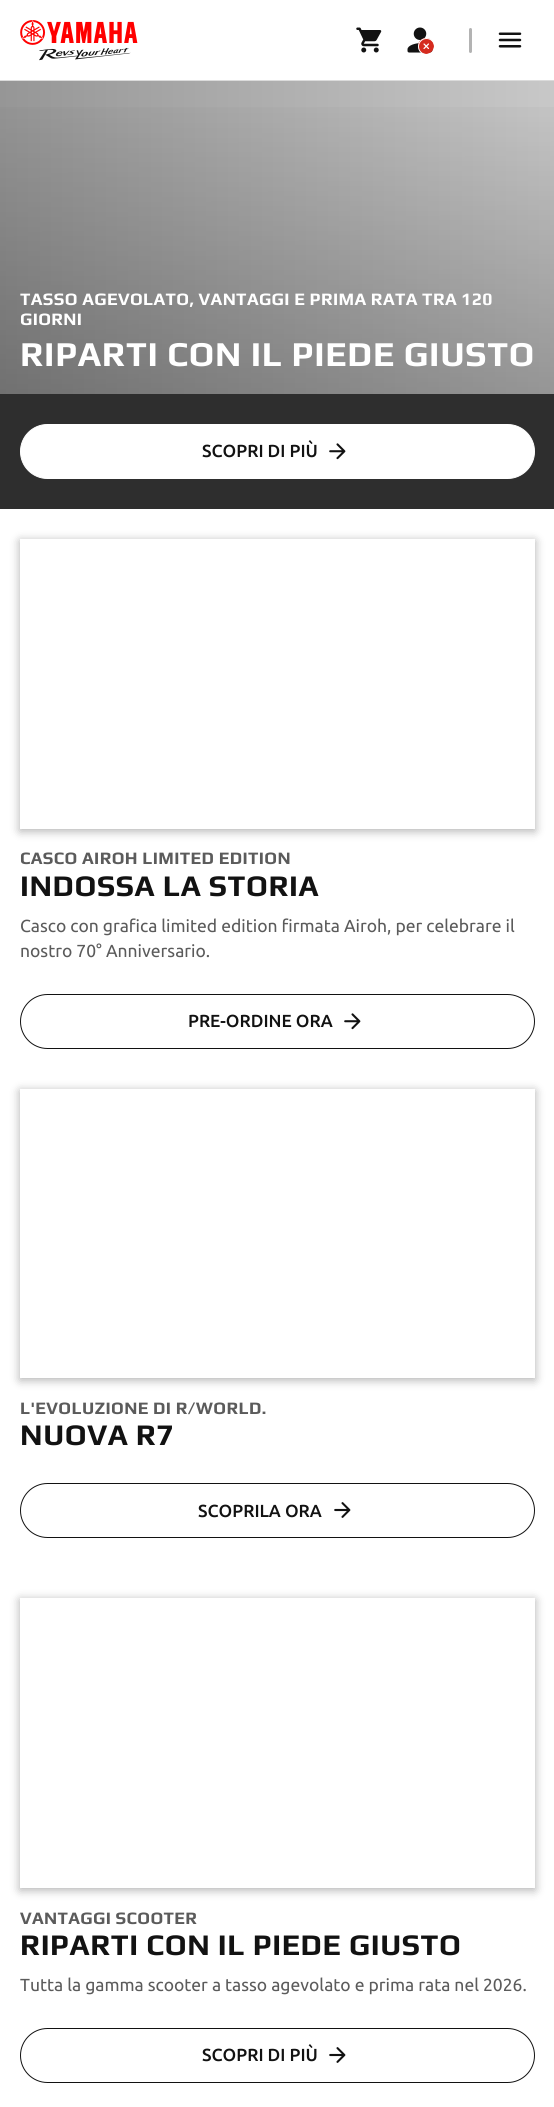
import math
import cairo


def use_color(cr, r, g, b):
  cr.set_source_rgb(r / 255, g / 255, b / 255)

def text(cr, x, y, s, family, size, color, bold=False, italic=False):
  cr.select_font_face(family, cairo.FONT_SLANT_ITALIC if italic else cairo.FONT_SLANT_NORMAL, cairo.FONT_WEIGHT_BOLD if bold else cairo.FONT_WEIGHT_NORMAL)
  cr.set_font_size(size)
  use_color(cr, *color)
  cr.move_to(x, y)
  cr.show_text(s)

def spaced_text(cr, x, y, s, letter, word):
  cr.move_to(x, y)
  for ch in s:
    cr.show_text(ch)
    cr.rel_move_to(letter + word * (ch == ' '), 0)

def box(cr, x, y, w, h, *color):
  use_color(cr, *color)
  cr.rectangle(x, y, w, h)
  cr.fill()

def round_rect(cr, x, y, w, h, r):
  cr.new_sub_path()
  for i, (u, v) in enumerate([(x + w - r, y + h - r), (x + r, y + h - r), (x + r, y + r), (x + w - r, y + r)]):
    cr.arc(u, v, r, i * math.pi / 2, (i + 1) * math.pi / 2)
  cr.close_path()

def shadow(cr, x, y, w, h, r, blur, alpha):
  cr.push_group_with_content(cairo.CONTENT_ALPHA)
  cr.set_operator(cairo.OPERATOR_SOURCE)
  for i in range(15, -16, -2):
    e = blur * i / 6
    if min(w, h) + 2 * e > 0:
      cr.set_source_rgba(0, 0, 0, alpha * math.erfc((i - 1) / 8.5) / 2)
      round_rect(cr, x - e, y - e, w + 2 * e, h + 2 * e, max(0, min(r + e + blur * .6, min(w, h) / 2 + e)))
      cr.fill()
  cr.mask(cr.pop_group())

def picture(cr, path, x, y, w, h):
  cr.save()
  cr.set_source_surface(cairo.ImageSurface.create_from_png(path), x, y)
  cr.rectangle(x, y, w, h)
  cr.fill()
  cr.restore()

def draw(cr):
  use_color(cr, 255, 255, 255)
  cr.paint()
  box(cr, 0, 80, 554, 1, 219, 219, 219)
  picture(cr, "img_01.png", 20, 20, 118, 41)
  picture(cr, "img_02.png", 356, 27, 26, 26)
  picture(cr, "img_03.png", 407, 27, 27, 27)
  use_color(cr, 179, 179, 179)
  round_rect(cr, 469, 28, 3, 25, 1.5)
  cr.fill()
  picture(cr, "img_04.png", 498, 32, 24, 16)
  gradient = cairo.LinearGradient(0, 238, 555, 238)
  gradient.add_color_stop_rgba(0, 0.588, 0.588, 0.588, 1)
  gradient.add_color_stop_rgba(1, 0.784, 0.784, 0.784, 1)
  cr.set_source(gradient)
  cr.rectangle(0, 81, 554, 313)
  cr.fill()
  gradient = cairo.LinearGradient(277, 81, 278, 394)
  gradient.add_color_stop_rgba(0, 0, 0, 0, 0)
  gradient.add_color_stop_rgba(1, 0, 0, 0, 0.25)
  cr.set_source(gradient)
  cr.rectangle(0, 107, 554, 287)
  cr.fill()
  box(cr, 0, 394, 554, 115, 46, 46, 46)
  use_color(cr, 255, 255, 255)
  round_rect(cr, 20.5, 424.5, 514, 54, 27)
  cr.fill_preserve()
  cr.set_line_width(1)
  cr.stroke()
  picture(cr, "img_05.png", 329, 443, 17, 17)
  cr.save()
  cr.set_fill_rule(cairo.FILL_RULE_EVEN_ODD)
  cr.new_path()
  cr.move_to(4, 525)
  cr.line_to(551, 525)
  cr.line_to(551, 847)
  cr.line_to(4, 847)
  cr.close_path()
  cr.move_to(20, 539)
  cr.line_to(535, 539)
  cr.line_to(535, 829)
  cr.line_to(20, 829)
  cr.close_path()
  cr.clip()
  use_color(cr, 0, 0, 0)
  shadow(cr, 20, 541, 515, 290, 0, 5, 0.32)
  cr.restore()
  round_rect(cr, 20.5, 994.5, 514, 54, 27)
  use_color(cr, 18, 18, 18)
  cr.stroke()
  picture(cr, "img_05.png", 344, 1013, 17, 17)
  cr.save()
  cr.set_fill_rule(cairo.FILL_RULE_EVEN_ODD)
  cr.new_path()
  cr.move_to(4, 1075)
  cr.line_to(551, 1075)
  cr.line_to(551, 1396)
  cr.line_to(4, 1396)
  cr.close_path()
  cr.move_to(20, 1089)
  cr.line_to(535, 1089)
  cr.line_to(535, 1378)
  cr.line_to(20, 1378)
  cr.close_path()
  cr.clip()
  use_color(cr, 0, 0, 0)
  shadow(cr, 20, 1091, 515, 289, 0, 5, 0.32)
  cr.restore()
  round_rect(cr, 20.5, 1483.5, 514, 54, 27)
  cr.stroke()
  picture(cr, "img_06.png", 334, 1502, 17, 16)
  cr.save()
  cr.set_fill_rule(cairo.FILL_RULE_EVEN_ODD)
  cr.new_path()
  cr.move_to(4, 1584)
  cr.line_to(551, 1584)
  cr.line_to(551, 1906)
  cr.line_to(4, 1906)
  cr.close_path()
  cr.move_to(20, 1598)
  cr.line_to(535, 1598)
  cr.line_to(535, 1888)
  cr.line_to(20, 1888)
  cr.close_path()
  cr.clip()
  use_color(cr, 0, 0, 0)
  shadow(cr, 20, 1600, 515, 290, 0, 5, 0.32)
  cr.restore()
  round_rect(cr, 20.5, 2028.5, 514, 54, 27)
  cr.stroke()
  picture(cr, "img_06.png", 329, 2047, 17, 16)
  cr.select_font_face("Play", cairo.FONT_SLANT_NORMAL, cairo.FONT_WEIGHT_BOLD)
  cr.set_font_size(17.5)
  use_color(cr, 255, 255, 255)
  spaced_text(cr, 20, 305, "TASSO AGEVOLATO, VANTAGGI E PRIMA RATA TRA 120", 0.35, 0)
  spaced_text(cr, 20, 325, "GIORNI", 0.35, 0)
  cr.set_font_size(35)
  spaced_text(cr, 20, 366, "RIPARTI CON IL PIEDE GIUSTO", 0.7, 0)
  text(cr, 202, 457, "SCOPRI DI PIÙ", "Ubuntu Medium", 17.5, (18, 18, 18))
  cr.select_font_face("Play", cairo.FONT_SLANT_NORMAL, cairo.FONT_WEIGHT_BOLD)
  use_color(cr, 91, 91, 91)
  spaced_text(cr, 20, 864, "CASCO AIROH LIMITED EDITION", 0.35, 0)
  cr.set_font_size(30)
  use_color(cr, 18, 18, 18)
  spaced_text(cr, 20, 896, "INDOSSA LA STORIA", 0.6, 0)
  text(cr, 20, 932, "Casco con grafica limited edition firmata Airoh, per celebrare il", "Ubuntu", 17.5, (91, 91, 91))
  text(cr, 20, 957, "nostro 70° Anniversario.", "Ubuntu", 17.5, (91, 91, 91))
  text(cr, 188, 1027, "PRE-ORDINE ORA", "Ubuntu Medium", 17.5, (18, 18, 18))
  cr.select_font_face("Play", cairo.FONT_SLANT_NORMAL, cairo.FONT_WEIGHT_BOLD)
  use_color(cr, 91, 91, 91)
  spaced_text(cr, 20, 1414, "L'EVOLUZIONE DI R/WORLD.", 0.35, 0)
  cr.set_font_size(30)
  use_color(cr, 18, 18, 18)
  spaced_text(cr, 20, 1445, "NUOVA R7", 0.6, 0)
  text(cr, 198, 1517, "SCOPRILA ORA", "Ubuntu Medium", 17.5, (18, 18, 18))
  cr.select_font_face("Play", cairo.FONT_SLANT_NORMAL, cairo.FONT_WEIGHT_BOLD)
  use_color(cr, 91, 91, 91)
  spaced_text(cr, 20, 1924, "VANTAGGI SCOOTER", 0.35, 0)
  cr.set_font_size(30)
  use_color(cr, 18, 18, 18)
  spaced_text(cr, 20, 1955, "RIPARTI CON IL PIEDE GIUSTO", 0.6, 0)
  text(cr, 20, 1991, "Tutta la gamma scooter a tasso agevolato e prima rata nel 2026.", "Ubuntu", 17.5, (91, 91, 91))
  text(cr, 202, 2061, "SCOPRI DI PIÙ", "Ubuntu Medium", 17.5, (18, 18, 18))


surface = cairo.ImageSurface(cairo.FORMAT_RGB24, 554, 2107)
cr = cairo.Context(surface)
options = cairo.FontOptions()
options.set_hint_metrics(cairo.HINT_METRICS_OFF)
options.set_hint_style(cairo.HINT_STYLE_NONE)
cr.set_font_options(options)
cr.set_miter_limit(4)
draw(cr)
surface.write_to_png("out.png")
